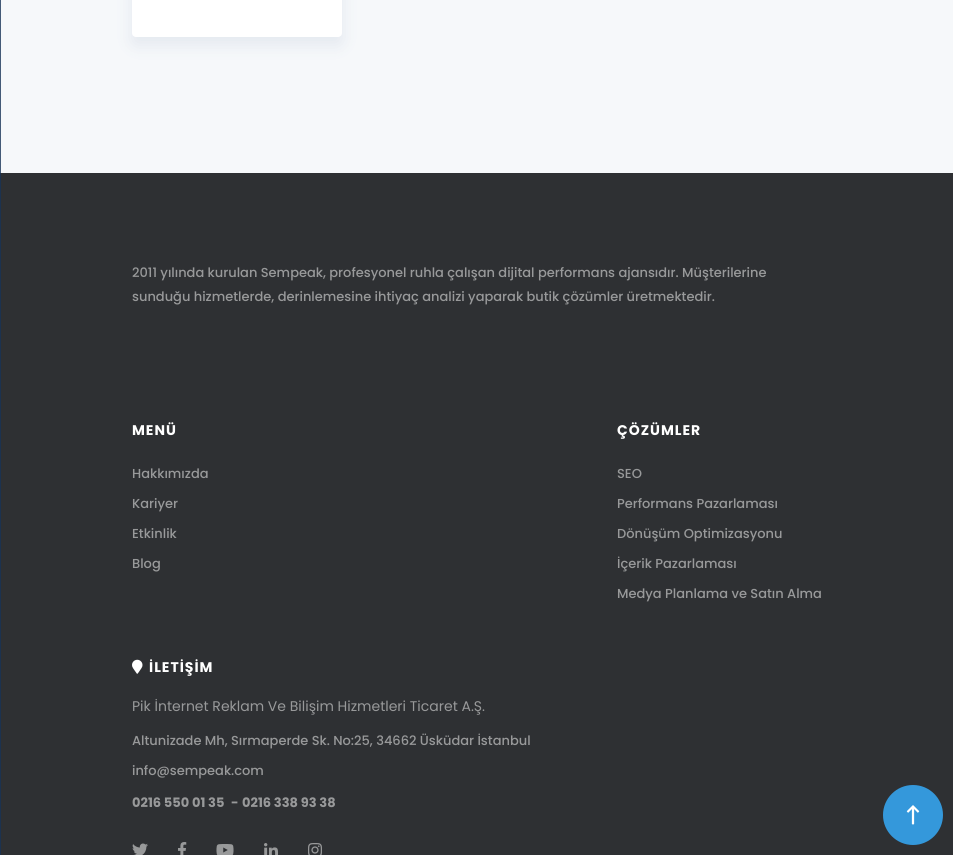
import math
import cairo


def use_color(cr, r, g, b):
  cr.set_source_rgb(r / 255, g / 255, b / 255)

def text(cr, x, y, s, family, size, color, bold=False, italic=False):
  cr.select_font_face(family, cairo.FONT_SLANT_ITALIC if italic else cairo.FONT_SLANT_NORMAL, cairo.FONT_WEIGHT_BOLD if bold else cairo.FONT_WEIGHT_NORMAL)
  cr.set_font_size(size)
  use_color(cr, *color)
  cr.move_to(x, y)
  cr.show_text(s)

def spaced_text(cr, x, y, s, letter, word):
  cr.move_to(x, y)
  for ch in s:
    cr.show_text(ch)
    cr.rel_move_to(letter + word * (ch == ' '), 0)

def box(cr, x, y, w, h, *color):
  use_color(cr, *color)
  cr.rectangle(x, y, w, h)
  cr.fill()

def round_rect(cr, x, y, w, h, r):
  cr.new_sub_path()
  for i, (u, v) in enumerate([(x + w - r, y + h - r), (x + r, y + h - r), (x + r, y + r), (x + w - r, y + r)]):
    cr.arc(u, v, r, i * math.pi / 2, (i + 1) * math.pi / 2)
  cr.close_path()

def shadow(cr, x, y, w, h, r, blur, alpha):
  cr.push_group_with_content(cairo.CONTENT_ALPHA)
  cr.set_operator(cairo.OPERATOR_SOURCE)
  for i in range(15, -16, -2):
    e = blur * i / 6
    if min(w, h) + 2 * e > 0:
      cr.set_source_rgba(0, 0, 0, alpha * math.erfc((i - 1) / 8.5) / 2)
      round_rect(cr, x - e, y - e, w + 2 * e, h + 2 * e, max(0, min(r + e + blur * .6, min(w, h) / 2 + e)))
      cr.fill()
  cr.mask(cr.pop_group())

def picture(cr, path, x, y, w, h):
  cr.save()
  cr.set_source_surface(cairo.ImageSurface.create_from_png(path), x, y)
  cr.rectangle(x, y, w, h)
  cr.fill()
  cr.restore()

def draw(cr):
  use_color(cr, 46, 48, 51)
  cr.paint()
  box(cr, 1, 0, 952, 173, 246, 248, 250)
  box(cr, 0, 0, 1, 173, 68, 90, 119)
  use_color(cr, 58, 95, 149)
  shadow(cr, 132, -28, 210, 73, 4, 8, 0.1)
  use_color(cr, 255, 255, 255)
  round_rect(cr, 132, -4, 210, 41, 4)
  cr.fill()
  use_color(cr, 52, 152, 219)
  cr.arc(913, 815, 30, 0, 2 * math.pi)
  cr.fill()
  picture(cr, "img_01.png", 906, 805, 14, 20)
  box(cr, 0, 173, 1, 682, 28, 50, 79)
  picture(cr, "img_02.png", 132, 659, 11, 15)
  picture(cr, "img_03.png", 132, 843, 16, 12)
  picture(cr, "img_04.png", 178, 842, 9, 13)
  picture(cr, "img_05.png", 216, 844, 18, 11)
  picture(cr, "img_06.png", 264, 843, 14, 12)
  picture(cr, "img_07.png", 308, 843, 14, 12)
  text(cr, 132, 277, "2011 yılında kurulan Sempeak, profesyonel ruhla çalışan dijital performans ajansıdır. Müşterilerine", "Poppins Medium", 13, (152, 153, 154))
  text(cr, 132, 301, "sunduğu hizmetlerde, derinlemesine ihtiyaç analizi yaparak butik çözümler üretmektedir.", "Poppins Medium", 13, (152, 153, 154))
  cr.select_font_face("Poppins", cairo.FONT_SLANT_NORMAL, cairo.FONT_WEIGHT_BOLD)
  cr.set_font_size(14)
  use_color(cr, 255, 255, 255)
  spaced_text(cr, 132, 435, "MENÜ", 1, 0)
  text(cr, 132, 478, "Hakkımızda", "Poppins Medium", 13, (152, 153, 154))
  text(cr, 132, 508, "Kariyer", "Poppins Medium", 13, (152, 153, 154))
  text(cr, 132, 538, "Etkinlik", "Poppins Medium", 13, (152, 153, 154))
  text(cr, 132, 568, "Blog", "Poppins Medium", 13, (152, 153, 154))
  cr.select_font_face("Poppins", cairo.FONT_SLANT_NORMAL, cairo.FONT_WEIGHT_BOLD)
  cr.set_font_size(14)
  use_color(cr, 255, 255, 255)
  spaced_text(cr, 617, 435, "ÇÖZÜMLER", 1, 0)
  text(cr, 617, 478, "SEO", "Poppins Medium", 13, (152, 153, 154))
  text(cr, 617, 508, "Performans Pazarlaması", "Poppins Medium", 13, (152, 153, 154))
  text(cr, 617, 538, "Dönüşüm Optimizasyonu", "Poppins Medium", 13, (152, 153, 154))
  text(cr, 617, 568, "İçerik Pazarlaması", "Poppins Medium", 13, (152, 153, 154))
  text(cr, 617, 598, "Medya Planlama ve Satın Alma", "Poppins Medium", 13, (152, 153, 154))
  cr.select_font_face("Poppins", cairo.FONT_SLANT_NORMAL, cairo.FONT_WEIGHT_BOLD)
  cr.set_font_size(14)
  use_color(cr, 255, 255, 255)
  spaced_text(cr, 149, 672, "İLETİŞİM", 1, 0)
  text(cr, 132, 711, "Pik İnternet Reklam Ve Bilişim Hizmetleri Ticaret A.Ş.", "Poppins", 14, (152, 153, 154))
  text(cr, 132, 745, "Altunizade Mh, Sırmaperde Sk. No:25, 34662 Üsküdar İstanbul", "Poppins Medium", 13, (152, 153, 154))
  text(cr, 132, 775, "info@sempeak.com", "Poppins Medium", 13, (152, 153, 154))
  text(cr, 132, 807, "0216 550 01 35", "Poppins", 13, (152, 153, 154), bold=True)
  text(cr, 231, 807, "-", "Poppins", 13, (152, 153, 154), bold=True)
  text(cr, 242, 807, "0216 338 93 38", "Poppins", 13, (152, 153, 154), bold=True)


surface = cairo.ImageSurface(cairo.FORMAT_RGB24, 953, 855)
cr = cairo.Context(surface)
options = cairo.FontOptions()
options.set_hint_metrics(cairo.HINT_METRICS_OFF)
options.set_hint_style(cairo.HINT_STYLE_NONE)
cr.set_font_options(options)
cr.set_miter_limit(4)
draw(cr)
surface.write_to_png("out.png")
